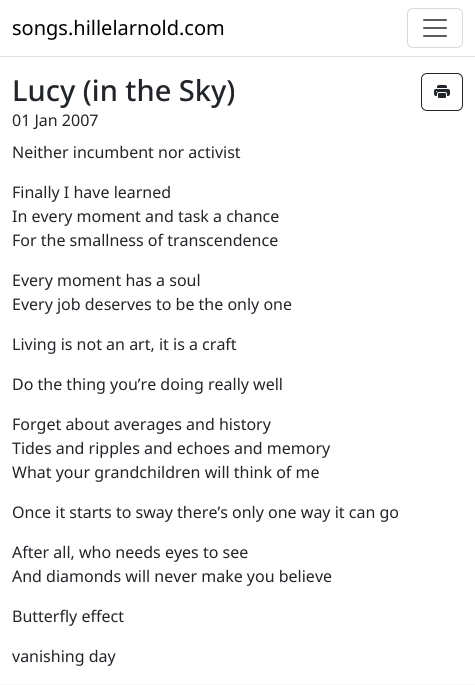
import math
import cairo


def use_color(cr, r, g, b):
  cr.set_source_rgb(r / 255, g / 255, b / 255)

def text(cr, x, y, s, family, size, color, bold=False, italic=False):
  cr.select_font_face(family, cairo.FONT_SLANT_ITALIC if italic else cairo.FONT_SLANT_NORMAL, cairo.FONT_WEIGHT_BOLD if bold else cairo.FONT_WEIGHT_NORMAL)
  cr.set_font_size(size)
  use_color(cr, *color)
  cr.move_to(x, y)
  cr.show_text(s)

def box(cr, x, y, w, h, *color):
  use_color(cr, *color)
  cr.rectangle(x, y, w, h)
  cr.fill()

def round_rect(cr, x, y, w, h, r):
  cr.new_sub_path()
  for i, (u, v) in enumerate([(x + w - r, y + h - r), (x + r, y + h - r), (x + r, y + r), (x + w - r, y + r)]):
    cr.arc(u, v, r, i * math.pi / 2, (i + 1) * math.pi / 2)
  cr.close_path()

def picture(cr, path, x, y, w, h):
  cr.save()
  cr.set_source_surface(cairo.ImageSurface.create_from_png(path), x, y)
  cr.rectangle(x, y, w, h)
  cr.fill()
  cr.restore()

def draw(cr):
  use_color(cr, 255, 255, 255)
  cr.paint()
  box(cr, 0, 56, 475, 1, 222, 226, 230)
  round_rect(cr, 407.5, 8.5, 55, 39, 5.5)
  use_color(cr, 217, 217, 217)
  cr.set_line_width(1)
  cr.stroke()
  picture(cr, "img_01.png", 423, 19, 24, 18)
  round_rect(cr, 421.5, 73.5, 41, 37, 5.5)
  use_color(cr, 33, 37, 41)
  cr.stroke()
  picture(cr, "img_02.png", 434, 85, 16, 13)
  box(cr, 0, 684, 475, 1, 248, 249, 250)
  text(cr, 12, 35, "songs.hillelarnold.com", "Noto Sans", 20, (0, 0, 0))
  text(cr, 12, 101, "Lucy (in the Sky)", "Noto Sans Medium", 29, (33, 37, 41))
  text(cr, 12, 126, "01 Jan 2007", "Noto Sans", 16, (33, 37, 41))
  text(cr, 12, 158, "Neither incumbent nor activist", "Noto Sans", 16, (33, 37, 41))
  text(cr, 12, 198, "Finally I have learned", "Noto Sans", 16, (33, 37, 41))
  text(cr, 12, 222, "In every moment and task a chance", "Noto Sans", 16, (33, 37, 41))
  text(cr, 12, 246, "For the smallness of transcendence", "Noto Sans", 16, (33, 37, 41))
  text(cr, 12, 286, "Every moment has a soul", "Noto Sans", 16, (33, 37, 41))
  text(cr, 12, 310, "Every job deserves to be the only one", "Noto Sans", 16, (33, 37, 41))
  text(cr, 12, 350, "Living is not an art, it is a craft", "Noto Sans", 16, (33, 37, 41))
  text(cr, 12, 390, "Do the thing you’re doing really well", "Noto Sans", 16, (33, 37, 41))
  text(cr, 12, 430, "Forget about averages and history", "Noto Sans", 16, (33, 37, 41))
  text(cr, 12, 454, "Tides and ripples and echoes and memory", "Noto Sans", 16, (33, 37, 41))
  text(cr, 12, 478, "What your grandchildren will think of me", "Noto Sans", 16, (33, 37, 41))
  text(cr, 12, 518, "Once it starts to sway there’s only one way it can go", "Noto Sans", 16, (33, 37, 41))
  text(cr, 12, 558, "After all, who needs eyes to see", "Noto Sans", 16, (33, 37, 41))
  text(cr, 12, 582, "And diamonds will never make you believe", "Noto Sans", 16, (33, 37, 41))
  text(cr, 12, 622, "Butterfly effect", "Noto Sans", 16, (33, 37, 41))
  text(cr, 12, 662, "vanishing day", "Noto Sans", 16, (33, 37, 41))


surface = cairo.ImageSurface(cairo.FORMAT_RGB24, 475, 685)
cr = cairo.Context(surface)
options = cairo.FontOptions()
options.set_hint_metrics(cairo.HINT_METRICS_OFF)
options.set_hint_style(cairo.HINT_STYLE_NONE)
cr.set_font_options(options)
cr.set_miter_limit(4)
draw(cr)
surface.write_to_png("out.png")
